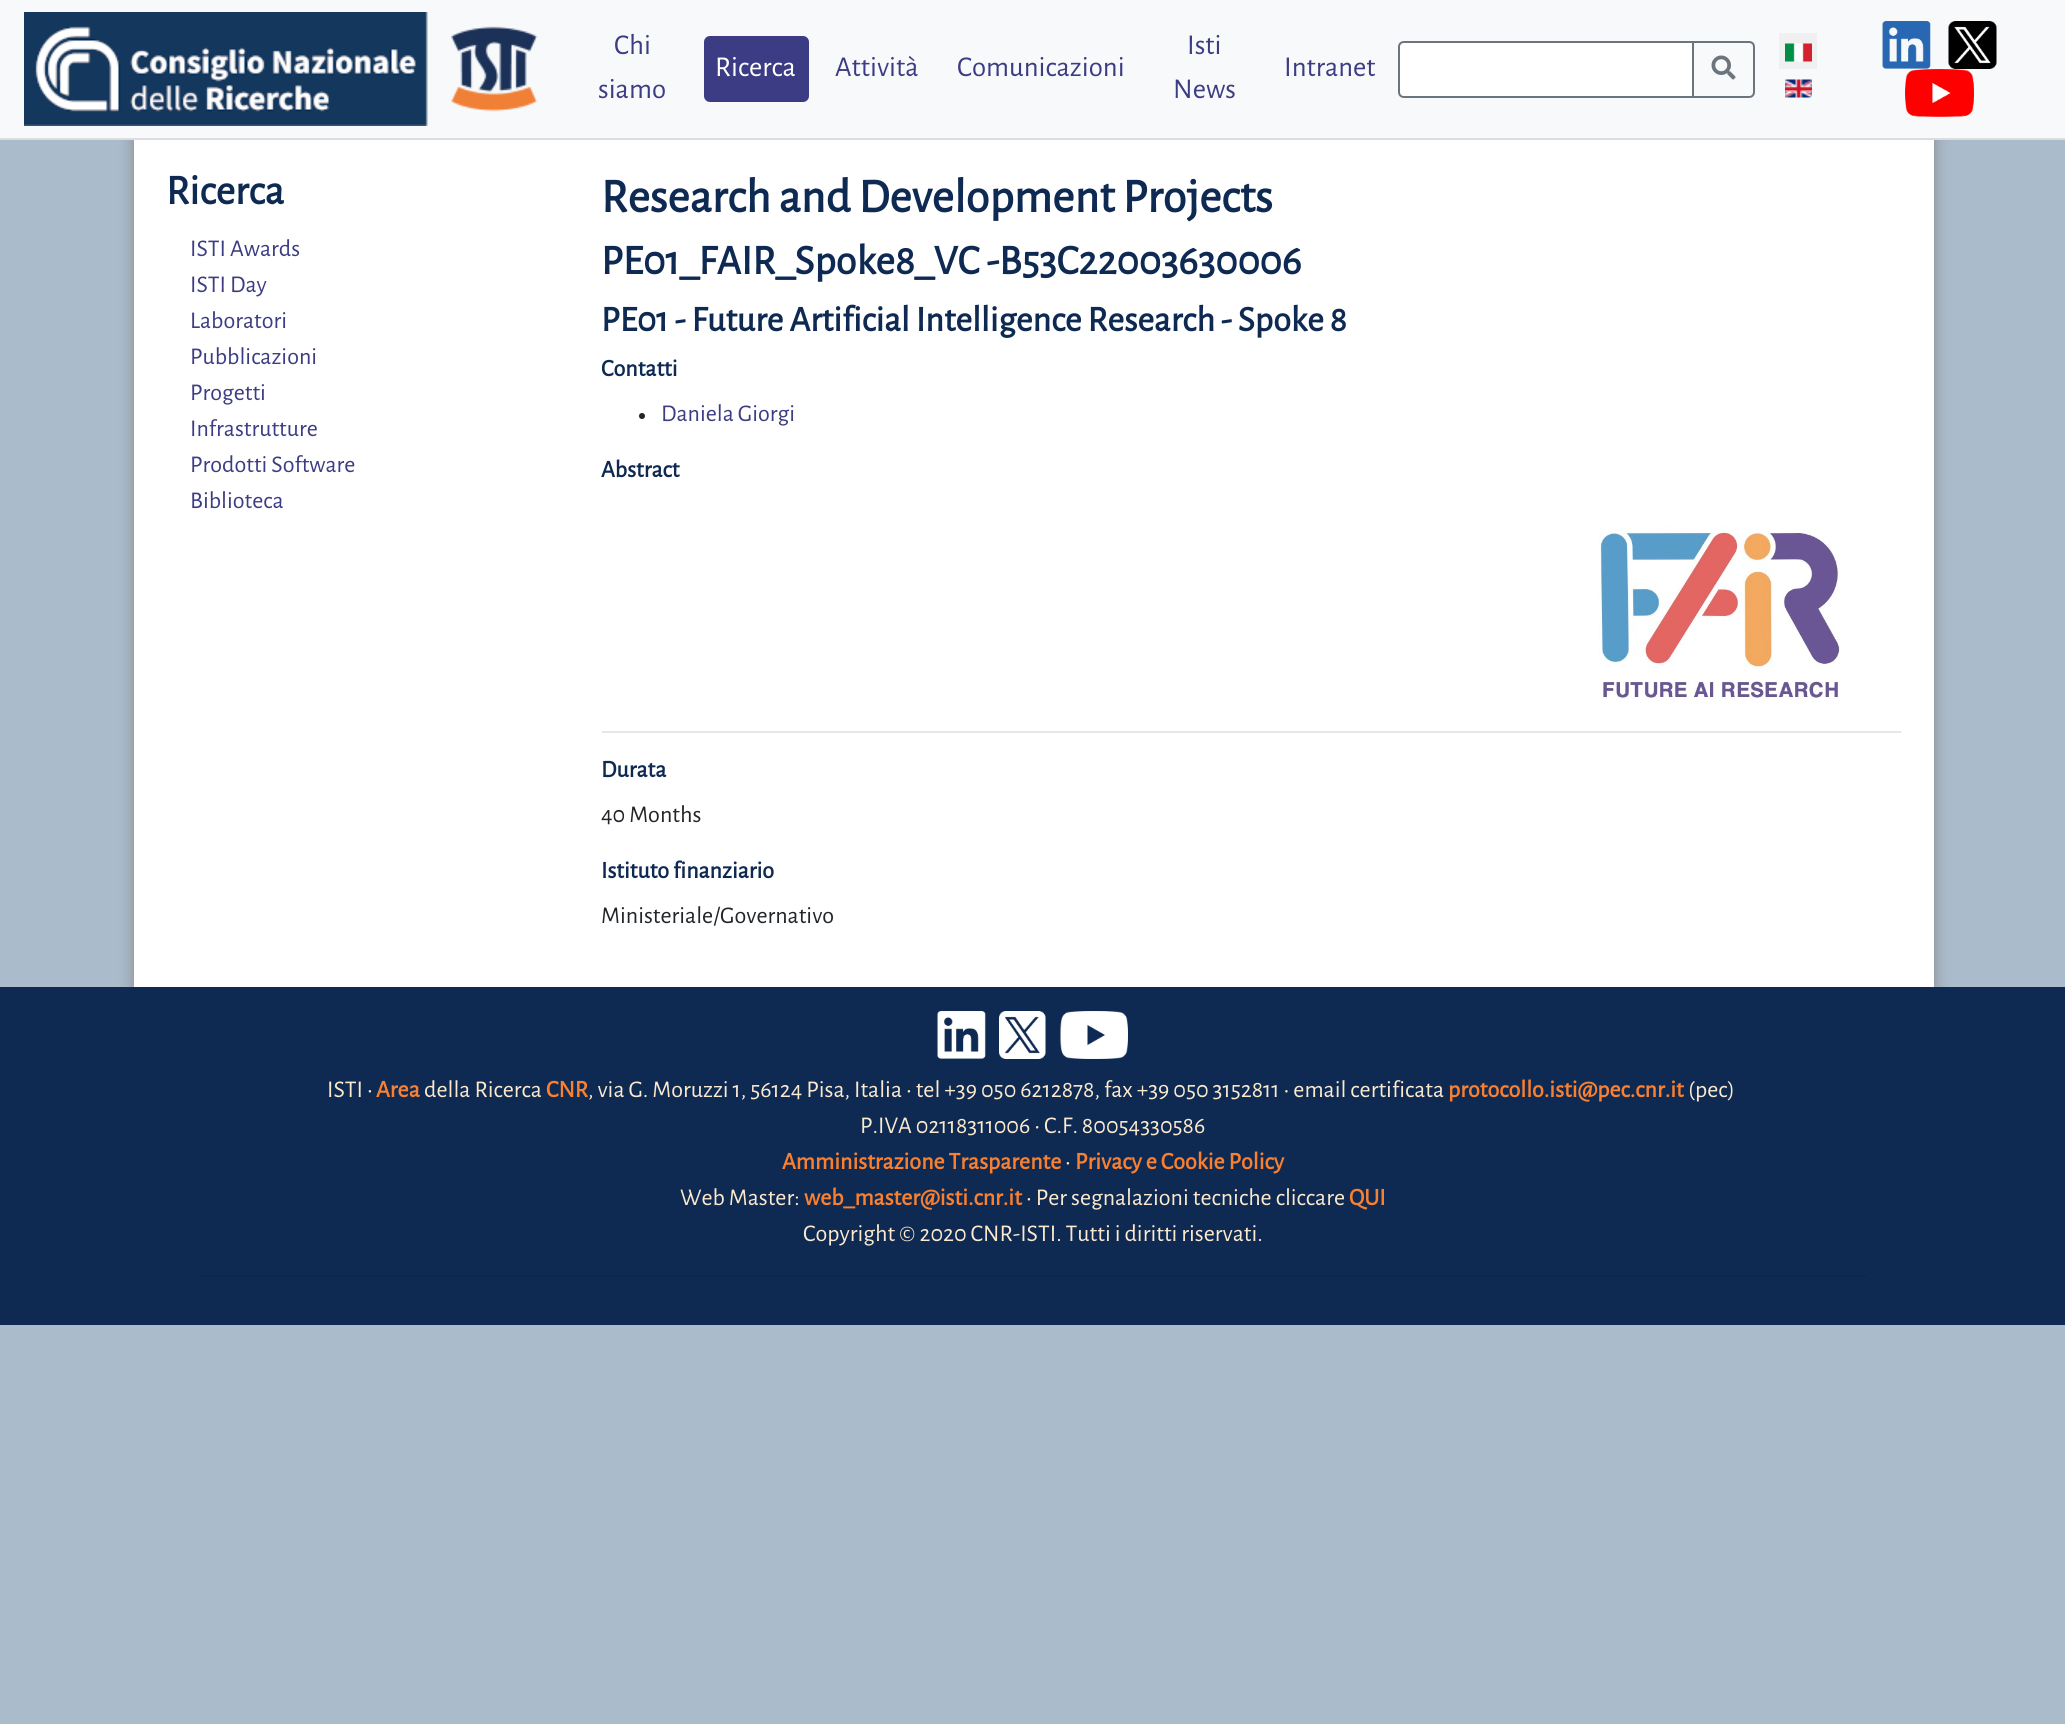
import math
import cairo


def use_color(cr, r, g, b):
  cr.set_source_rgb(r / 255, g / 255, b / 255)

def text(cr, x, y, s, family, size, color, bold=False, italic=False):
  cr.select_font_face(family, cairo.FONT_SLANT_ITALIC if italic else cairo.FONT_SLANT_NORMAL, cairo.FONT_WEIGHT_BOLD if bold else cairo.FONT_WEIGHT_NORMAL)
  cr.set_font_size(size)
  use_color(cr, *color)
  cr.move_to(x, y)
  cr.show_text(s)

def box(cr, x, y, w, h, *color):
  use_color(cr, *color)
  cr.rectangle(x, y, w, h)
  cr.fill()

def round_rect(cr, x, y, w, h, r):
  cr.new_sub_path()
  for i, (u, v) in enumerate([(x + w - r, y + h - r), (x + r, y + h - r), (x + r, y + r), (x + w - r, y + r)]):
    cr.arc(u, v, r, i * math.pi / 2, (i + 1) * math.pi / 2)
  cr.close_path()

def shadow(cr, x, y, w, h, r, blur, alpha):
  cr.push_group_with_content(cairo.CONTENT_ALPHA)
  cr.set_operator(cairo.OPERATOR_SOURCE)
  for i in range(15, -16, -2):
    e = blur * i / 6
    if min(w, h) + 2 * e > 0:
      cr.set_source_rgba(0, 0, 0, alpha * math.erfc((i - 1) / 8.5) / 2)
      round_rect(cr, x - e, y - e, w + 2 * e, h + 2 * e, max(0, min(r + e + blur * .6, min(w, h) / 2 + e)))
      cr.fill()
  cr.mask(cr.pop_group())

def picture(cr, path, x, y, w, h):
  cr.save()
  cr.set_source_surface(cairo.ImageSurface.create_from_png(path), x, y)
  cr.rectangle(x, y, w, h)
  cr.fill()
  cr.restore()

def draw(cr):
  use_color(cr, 170, 187, 204)
  cr.paint()
  use_color(cr, 136, 136, 136)
  shadow(cr, 134, 138, 1800, 849, 0, 7.5, 1)
  box(cr, 0, 0, 2065, 138, 248, 249, 250)
  box(cr, 0, 138, 2065, 2, 221, 221, 221)
  picture(cr, "img_01.png", 24, 12, 514, 114)
  use_color(cr, 60, 60, 132)
  round_rect(cr, 704, 36, 105, 66, 6)
  cr.fill()
  use_color(cr, 255, 255, 255)
  cr.new_path()
  cr.move_to(1404, 42)
  cr.line_to(1693, 42)
  cr.line_to(1693, 97)
  cr.line_to(1404, 97)
  cr.curve_to(1401, 97, 1399, 95, 1399, 92)
  cr.line_to(1399, 47)
  cr.curve_to(1399, 44, 1401, 42, 1404, 42)
  cr.close_path()
  cr.fill_preserve()
  use_color(cr, 108, 117, 125)
  cr.stroke()
  cr.new_path()
  cr.move_to(1693, 42)
  cr.line_to(1749, 42)
  cr.curve_to(1752, 42, 1754, 44, 1754, 47)
  cr.line_to(1754, 92)
  cr.curve_to(1754, 95, 1752, 97, 1749, 97)
  cr.line_to(1693, 97)
  cr.close_path()
  cr.stroke()
  picture(cr, "img_02.png", 1711, 55, 25, 25)
  box(cr, 1779, 33, 38, 36, 240, 240, 240)
  picture(cr, "img_03.png", 1785, 43, 27, 19)
  picture(cr, "img_04.png", 1785, 79, 27, 19)
  picture(cr, "img_05.png", 1882, 21, 49, 48)
  picture(cr, "img_06.png", 1948, 21, 49, 48)
  picture(cr, "img_07.png", 1905, 69, 69, 48)
  box(cr, 134, 140, 1800, 847, 255, 255, 255)
  use_color(cr, 33, 37, 41)
  cr.arc(642, 416, 3, 0, 2 * math.pi)
  cr.fill()
  picture(cr, "img_08.png", 1598, 526, 242, 174)
  box(cr, 602, 731, 1299, 2, 230, 230, 230)
  box(cr, 0, 987, 2065, 338, 15, 42, 82)
  picture(cr, "img_09.png", 937, 1011, 49, 48)
  picture(cr, "img_10.png", 999, 1011, 47, 48)
  picture(cr, "img_11.png", 1060, 1011, 68, 48)
  box(cr, 201, 1275, 1665, 2, 14, 38, 74)
  text(cr, 614, 54, "Chi", "Alegreya Sans", 28.75, (60, 60, 132))
  text(cr, 598, 98, "siamo", "Alegreya Sans", 28.75, (60, 60, 132))
  text(cr, 715, 76, "Ricerca", "Alegreya Sans", 28.75, (255, 255, 255))
  text(cr, 835, 76, "Attività", "Alegreya Sans", 28.75, (60, 60, 132))
  text(cr, 957, 76, "Comunicazioni", "Alegreya Sans", 28.75, (60, 60, 132))
  text(cr, 1187, 54, "Isti", "Alegreya Sans", 28.75, (60, 60, 132))
  text(cr, 1173, 98, "News", "Alegreya Sans", 28.75, (60, 60, 132))
  text(cr, 1284, 76, "Intranet", "Alegreya Sans", 28.75, (60, 60, 132))
  text(cr, 166, 204, "Ricerca", "Alegreya Sans", 42, (15, 42, 82), bold=True)
  text(cr, 190, 256, "ISTI Awards", "Alegreya Sans", 24, (60, 60, 132))
  text(cr, 190, 292, "ISTI Day", "Alegreya Sans", 24, (60, 60, 132))
  text(cr, 190, 328, "Laboratori", "Alegreya Sans", 24, (60, 60, 132))
  text(cr, 190, 364, "Pubblicazioni", "Alegreya Sans", 24, (60, 60, 132))
  text(cr, 190, 400, "Progetti", "Alegreya Sans", 24, (60, 60, 132))
  text(cr, 190, 436, "Infrastrutture", "Alegreya Sans", 24, (60, 60, 132))
  text(cr, 190, 472, "Prodotti Software", "Alegreya Sans", 24, (60, 60, 132))
  text(cr, 190, 508, "Biblioteca", "Alegreya Sans", 24, (60, 60, 132))
  text(cr, 601, 212, "Research and Development Projects", "Alegreya Sans", 48, (15, 42, 82), bold=True)
  text(cr, 601, 274, "PE01_FAIR_Spoke8_VC -B53C22003630006", "Alegreya Sans", 42, (15, 42, 82), bold=True)
  text(cr, 601, 331, "PE01 - Future Artificial Intelligence Research - Spoke 8", "Alegreya Sans", 36, (15, 42, 82), bold=True)
  text(cr, 601, 376, "Contatti", "Alegreya Sans", 24, (15, 42, 82), bold=True)
  text(cr, 661, 421, "Daniela Giorgi", "Alegreya Sans", 24, (60, 60, 132))
  text(cr, 601, 477, "Abstract", "Alegreya Sans", 24, (15, 42, 82), bold=True)
  text(cr, 601, 777, "Durata", "Alegreya Sans", 24, (15, 42, 82), bold=True)
  text(cr, 601, 822, "40 Months", "Alegreya Sans", 24, (33, 37, 41))
  text(cr, 601, 878, "Istituto finanziario", "Alegreya Sans", 24, (15, 42, 82), bold=True)
  text(cr, 601, 923, "Ministeriale/Governativo", "Alegreya Sans", 24, (33, 37, 41))
  text(cr, 327, 1097, "ISTI •", "Alegreya Sans", 24, (252, 234, 207))
  text(cr, 376, 1097, "Area", "Alegreya Sans", 24, (250, 128, 47), bold=True)
  text(cr, 424, 1097, "della Ricerca", "Alegreya Sans", 24, (252, 234, 207))
  text(cr, 546, 1097, "CNR", "Alegreya Sans", 24, (250, 128, 47), bold=True)
  text(cr, 588, 1097, ", via G. Moruzzi 1, 56124 Pisa, Italia • tel +39 050 6212878, fax +39 050 3152811 • email certificata", "Alegreya Sans", 24, (252, 234, 207))
  text(cr, 1448, 1097, "protocollo.isti@pec.cnr.it", "Alegreya Sans", 24, (250, 128, 47), bold=True)
  text(cr, 1688, 1097, "(pec)", "Alegreya Sans", 24, (252, 234, 207))
  text(cr, 860, 1133, "P.IVA 02118311006 • C.F. 80054330586", "Alegreya Sans", 24, (252, 234, 207))
  text(cr, 782, 1169, "Amministrazione Trasparente", "Alegreya Sans", 24, (250, 128, 47), bold=True)
  text(cr, 1065, 1169, "•", "Alegreya Sans", 24, (252, 234, 207))
  text(cr, 1075, 1169, "Privacy e Cookie Policy", "Alegreya Sans", 24, (250, 128, 47), bold=True)
  text(cr, 680, 1205, "Web Master:", "Alegreya Sans", 24, (252, 234, 207))
  text(cr, 804, 1205, "web_master@isti.cnr.it", "Alegreya Sans", 24, (250, 128, 47), bold=True)
  text(cr, 1026, 1205, "• Per segnalazioni tecniche cliccare", "Alegreya Sans", 24, (252, 234, 207))
  text(cr, 1349, 1205, "QUI", "Alegreya Sans", 24, (250, 128, 47), bold=True)
  text(cr, 803, 1241, "Copyright © 2020 CNR-ISTI. Tutti i diritti riservati.", "Alegreya Sans", 24, (252, 234, 207))


surface = cairo.ImageSurface(cairo.FORMAT_RGB24, 2065, 1724)
cr = cairo.Context(surface)
options = cairo.FontOptions()
options.set_hint_metrics(cairo.HINT_METRICS_OFF)
options.set_hint_style(cairo.HINT_STYLE_NONE)
cr.set_font_options(options)
cr.set_miter_limit(4)
draw(cr)
surface.write_to_png("out.png")
